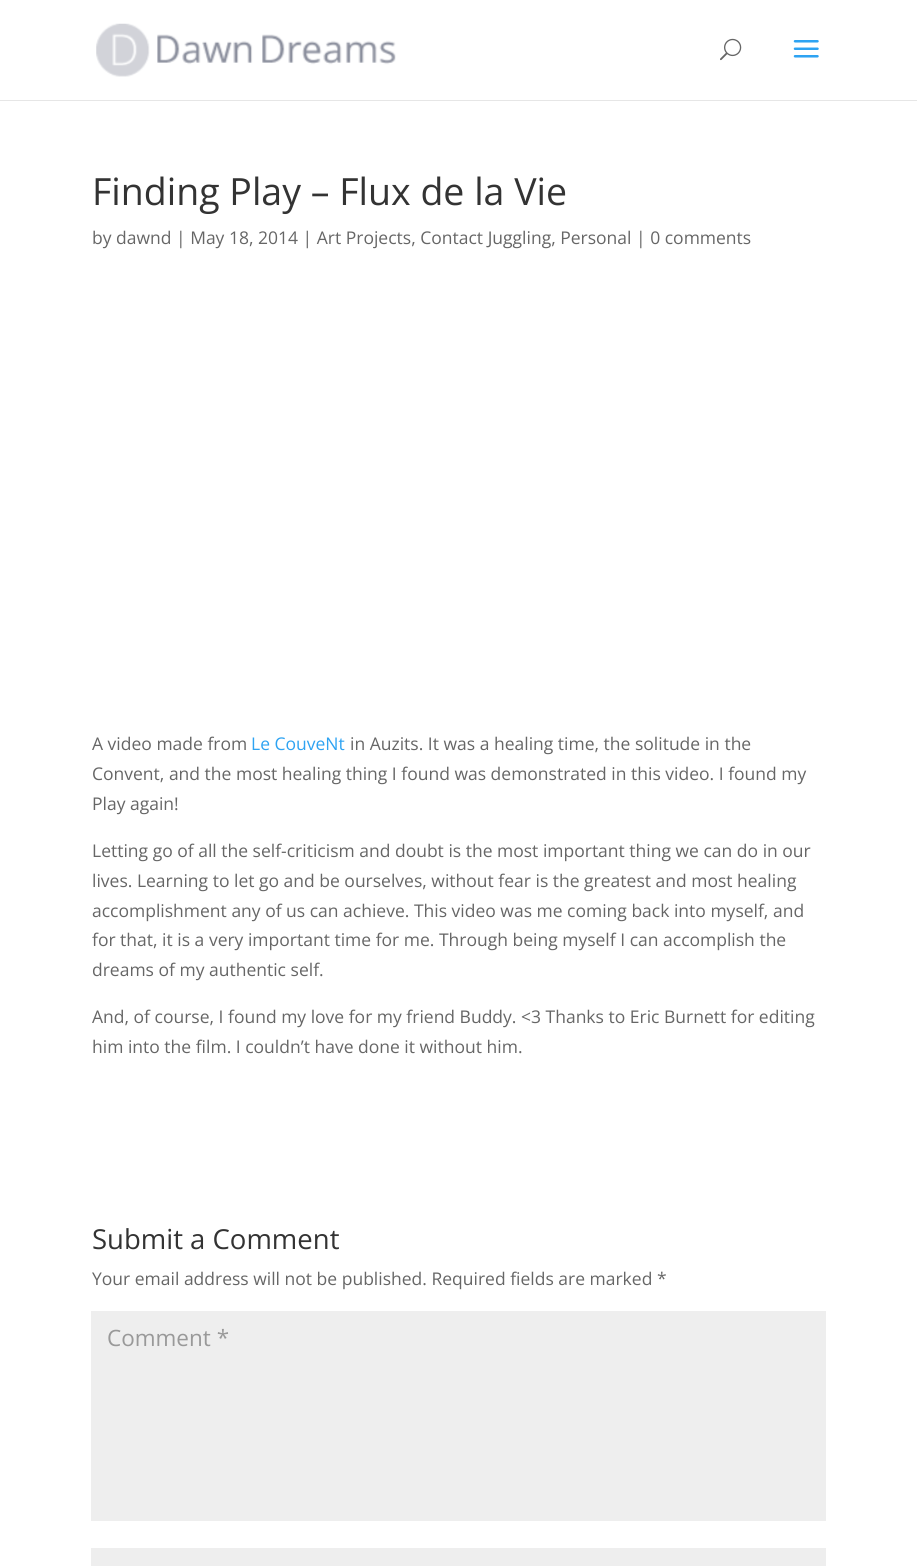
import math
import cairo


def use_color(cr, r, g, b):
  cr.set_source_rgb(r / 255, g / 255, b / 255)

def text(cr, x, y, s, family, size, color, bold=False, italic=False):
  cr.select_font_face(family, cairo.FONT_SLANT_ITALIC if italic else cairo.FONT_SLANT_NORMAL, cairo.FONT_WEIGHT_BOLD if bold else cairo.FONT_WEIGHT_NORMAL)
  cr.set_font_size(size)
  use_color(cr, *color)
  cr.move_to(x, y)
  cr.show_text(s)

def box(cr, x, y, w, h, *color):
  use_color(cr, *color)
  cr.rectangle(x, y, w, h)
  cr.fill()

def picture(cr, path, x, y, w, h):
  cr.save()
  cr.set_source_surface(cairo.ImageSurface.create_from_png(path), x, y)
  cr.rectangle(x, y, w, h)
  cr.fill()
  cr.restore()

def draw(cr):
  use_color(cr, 255, 255, 255)
  cr.paint()
  use_color(cr, 230, 230, 230)
  cr.new_path()
  cr.move_to(0, 100)
  cr.line_to(0, 101)
  cr.line_to(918, 101)
  cr.line_to(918, 1)
  cr.line_to(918, 100)
  cr.close_path()
  cr.fill()
  picture(cr, "img_01.png", 96, 23, 300, 54)
  picture(cr, "img_02.png", 720, 38, 22, 23)
  picture(cr, "img_03.png", 793, 40, 26, 18)
  box(cr, 91, 1311, 735, 210, 238, 238, 238)
  box(cr, 91, 1548, 735, 18, 238, 238, 238)
  text(cr, 92, 205, "Finding Play – Flux de la Vie", "Open Sans", 37.5, (51, 51, 51))
  text(cr, 92, 244, "by dawnd | May 18, 2014 | Art Projects, Contact Juggling, Personal | 0 comments", "Open Sans", 17.5, (102, 102, 102))
  text(cr, 92, 750, "A video made from", "Open Sans", 17.5, (102, 102, 102))
  text(cr, 251, 750, "Le CouveNt", "Open Sans", 17.5, (46, 163, 242))
  text(cr, 350, 750, "in Auzits. It was a healing time, the solitude in the", "Open Sans", 17.5, (102, 102, 102))
  text(cr, 92, 780, "Convent, and the most healing thing I found was demonstrated in this video. I found my", "Open Sans", 17.5, (102, 102, 102))
  text(cr, 92, 810, "Play again!", "Open Sans", 17.5, (102, 102, 102))
  text(cr, 92, 857, "Letting go of all the self-criticism and doubt is the most important thing we can do in our", "Open Sans", 17.5, (102, 102, 102))
  text(cr, 92, 887, "lives. Learning to let go and be ourselves, without fear is the greatest and most healing", "Open Sans", 17.5, (102, 102, 102))
  text(cr, 92, 917, "accomplishment any of us can achieve. This video was me coming back into myself, and", "Open Sans", 17.5, (102, 102, 102))
  text(cr, 92, 946, "for that, it is a very important time for me. Through being myself I can accomplish the", "Open Sans", 17.5, (102, 102, 102))
  text(cr, 92, 976, "dreams of my authentic self.", "Open Sans", 17.5, (102, 102, 102))
  text(cr, 92, 1023, "And, of course, I found my love for my friend Buddy. <3 Thanks to Eric Burnett for editing", "Open Sans", 17.5, (102, 102, 102))
  text(cr, 92, 1053, "him into the film. I couldn’t have done it without him.", "Open Sans", 17.5, (102, 102, 102))
  text(cr, 92, 1249, "Submit a Comment", "Open Sans", 27.5, (51, 51, 51))
  text(cr, 92, 1285, "Your email address will not be published. Required fields are marked *", "Open Sans", 17.5, (102, 102, 102))
  text(cr, 107, 1346, "Comment *", "Open Sans", 22.5, (153, 153, 153))


surface = cairo.ImageSurface(cairo.FORMAT_RGB24, 917, 1566)
cr = cairo.Context(surface)
options = cairo.FontOptions()
options.set_hint_metrics(cairo.HINT_METRICS_OFF)
options.set_hint_style(cairo.HINT_STYLE_NONE)
cr.set_font_options(options)
cr.set_miter_limit(4)
draw(cr)
surface.write_to_png("out.png")
